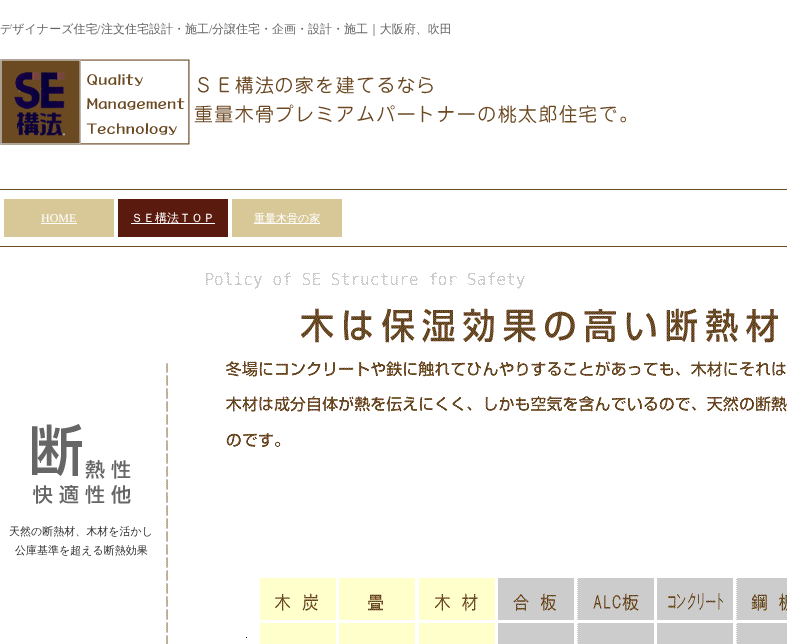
(async () => {
    const canvas = document.querySelector("canvas");
    canvas.width = 787;
    canvas.height = 644;
    const context = canvas.getContext("2d");
    context.miterLimit = 4;
    context.fontKerning = "normal";
    function write(s, x, y, font, color) {
        context.font = font;
        context.fillStyle = color;
        context.fillText(s, x, y);
    }
    function block(x, y, w, h, color) {
        context.fillStyle = color;
        context.fillRect(x, y, w, h);
    }
    async function photo(src, x, y, w, h) {
        const img = new Image();
        img.src = src;
        await img.decode();
        context.drawImage(img, x, y, w, h);
    }

    block(0, 0, 787, 644, "rgb(255, 255, 255)");
    write("デザイナーズ住宅", 0, 33, "500 12px WenQuanYi Zen Hei", "rgb(102, 102, 102)");
    write("/", 97, 33, "12px Liberation Serif", "rgb(102, 102, 102)");
    write("注文住宅設計・施工", 101, 33, "500 12px WenQuanYi Zen Hei", "rgb(102, 102, 102)");
    write("/", 209, 33, "12px Liberation Serif", "rgb(102, 102, 102)");
    write("分譲住宅・企画・設計・施工｜大阪府、吹田", 212, 33, "500 12px WenQuanYi Zen Hei", "rgb(102, 102, 102)");
    await photo("media/1.png", 0, 59, 190, 86);
    await photo("media/2.png", 194, 76, 432, 47);
    block(0, 189, 787, 1, "rgb(108, 73, 35)");
    block(0, 246, 787, 1, "rgb(108, 73, 35)");
    block(4, 199, 110, 38, "rgb(216, 200, 152)");
    write("HOME", 41, 222, "12px Liberation Serif", "rgb(255, 255, 255)");
    block(41, 223, 36, 1, "rgb(255, 255, 255)");
    block(118, 199, 110, 38, "rgb(90, 26, 14)");
    block(131, 223, 84, 1, "rgb(255, 255, 255)");
    write("ＳＥ構法ＴＯＰ", 131, 222, "500 12px WenQuanYi Zen Hei", "rgb(255, 255, 255)");
    block(232, 199, 110, 38, "rgb(216, 200, 152)");
    block(254, 223, 66, 1, "rgb(255, 255, 255)");
    write("重量木骨の家", 254, 222, "500 11px WenQuanYi Zen Hei", "rgb(255, 255, 255)");
    await photo("media/3.png", 32, 424, 99, 80);
    write("天然の断熱材、木材を活かし", 9, 535, "500 11px WenQuanYi Zen Hei", "rgb(51, 51, 51)");
    write("公庫基準を超える断熱効果", 15, 554, "500 11px WenQuanYi Zen Hei", "rgb(51, 51, 51)");
    await photo("media/4.png", 166, 363, 2, 281);
    await photo("media/5.png", 206, 272, 581, 372);
})();
